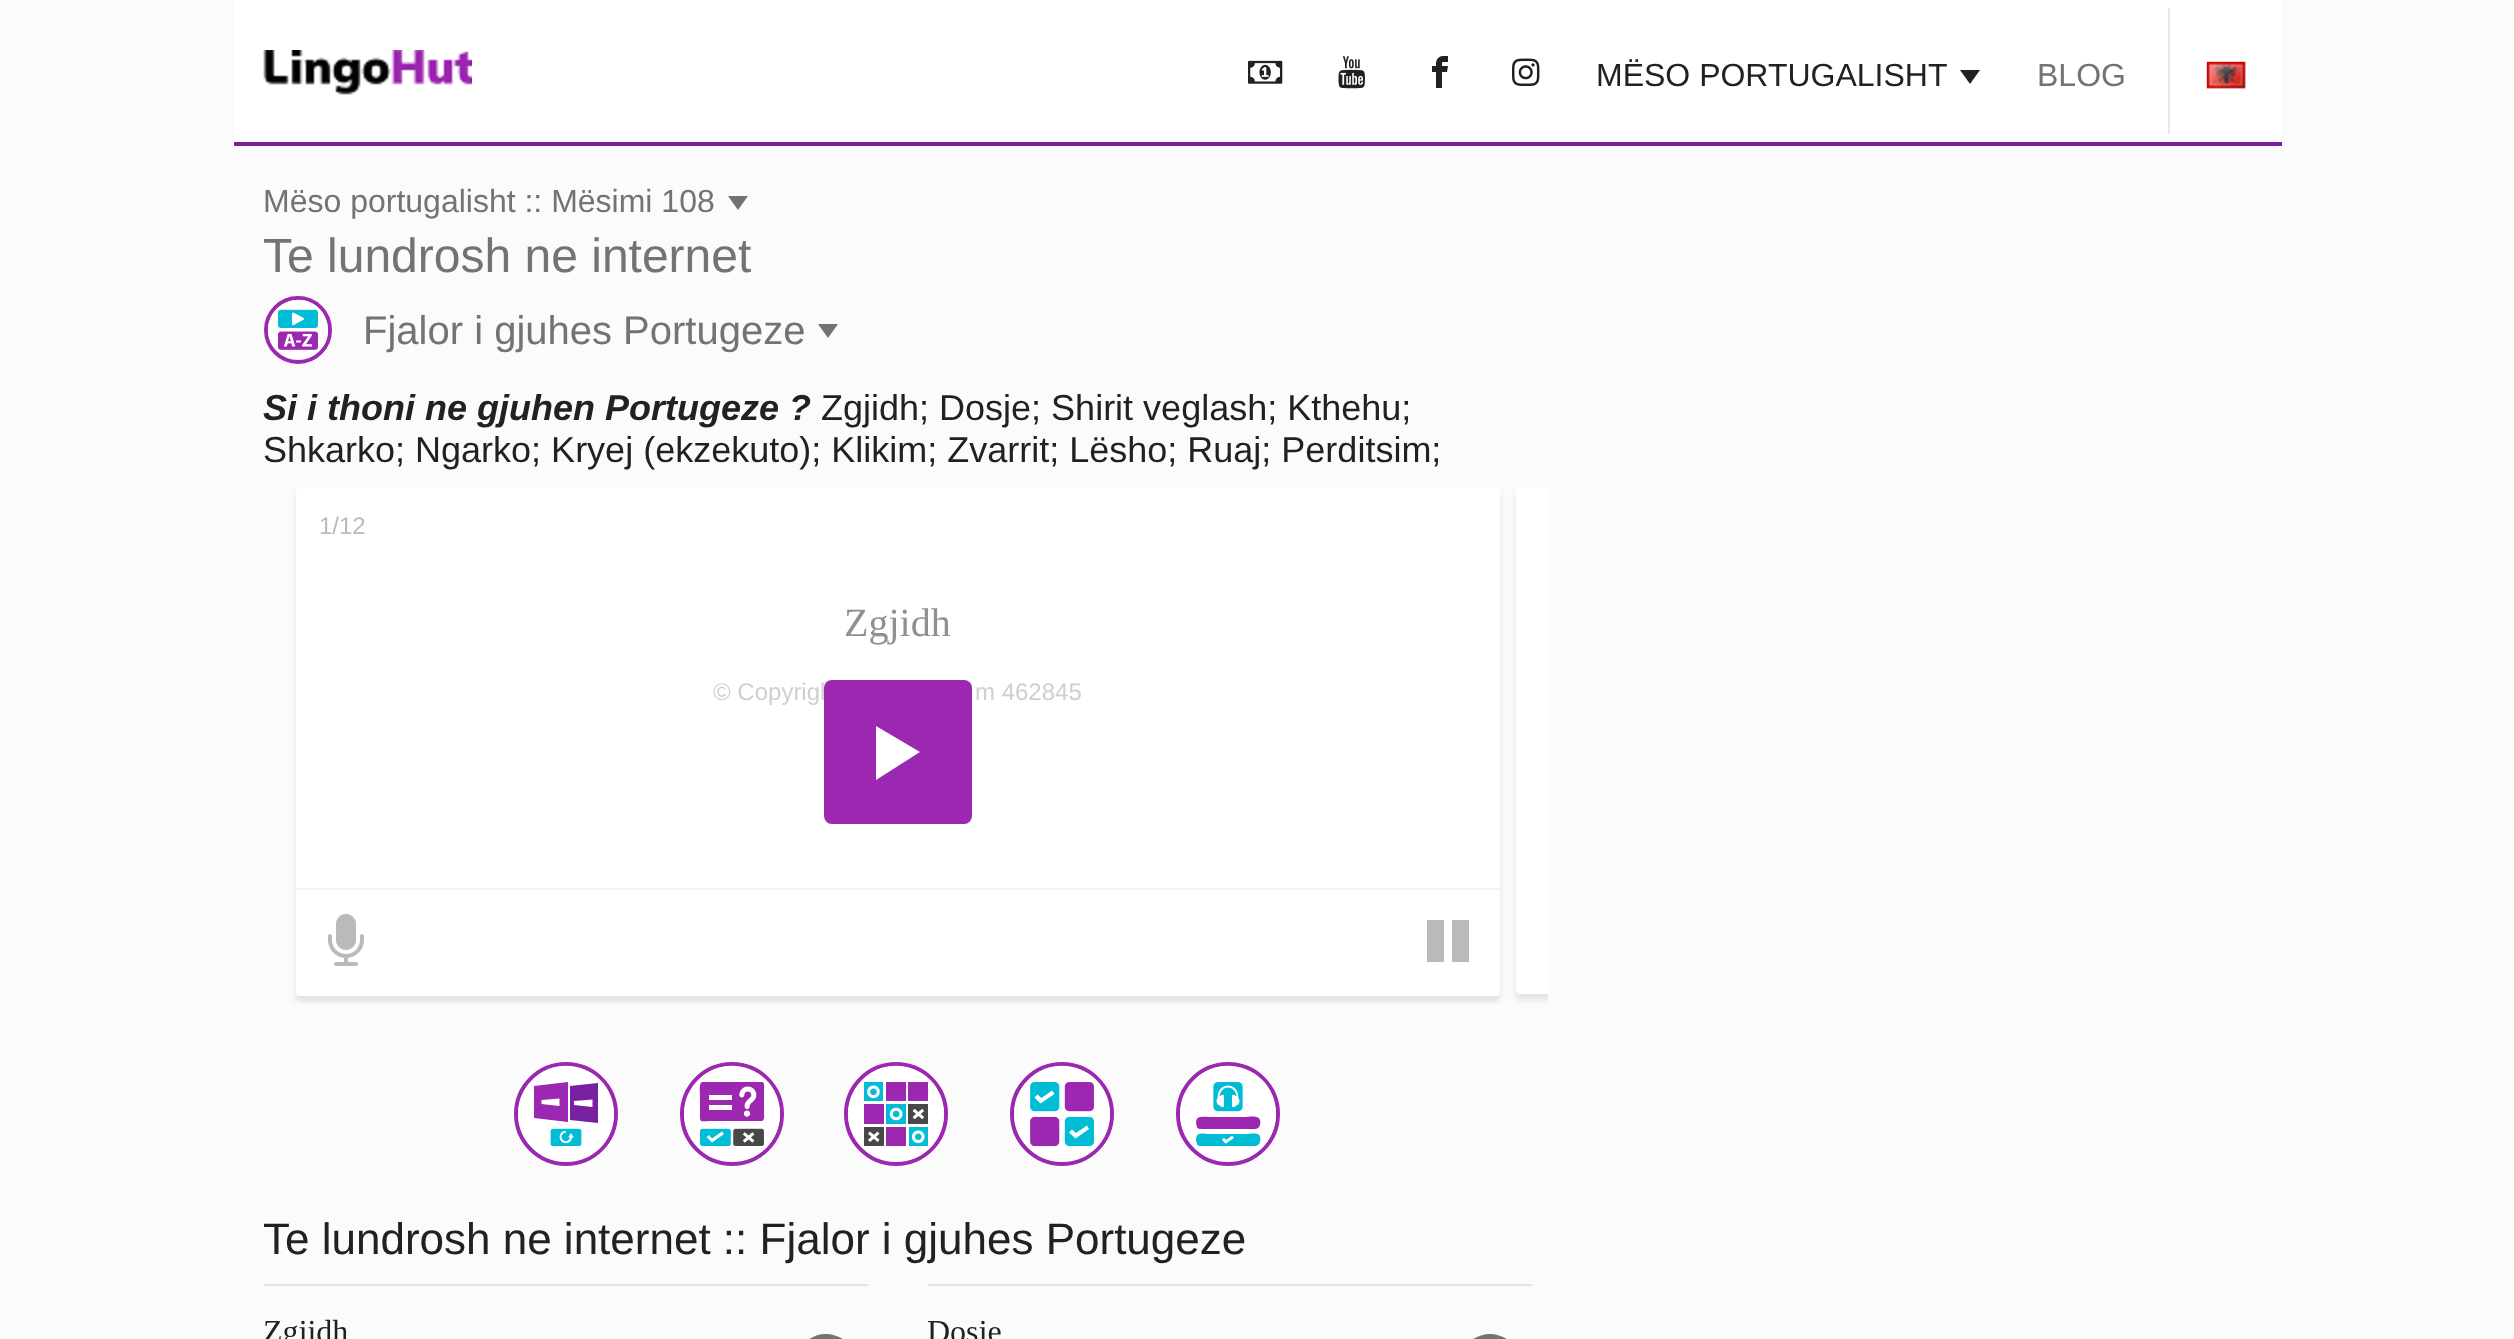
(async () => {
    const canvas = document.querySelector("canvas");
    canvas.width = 2514;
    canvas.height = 1339;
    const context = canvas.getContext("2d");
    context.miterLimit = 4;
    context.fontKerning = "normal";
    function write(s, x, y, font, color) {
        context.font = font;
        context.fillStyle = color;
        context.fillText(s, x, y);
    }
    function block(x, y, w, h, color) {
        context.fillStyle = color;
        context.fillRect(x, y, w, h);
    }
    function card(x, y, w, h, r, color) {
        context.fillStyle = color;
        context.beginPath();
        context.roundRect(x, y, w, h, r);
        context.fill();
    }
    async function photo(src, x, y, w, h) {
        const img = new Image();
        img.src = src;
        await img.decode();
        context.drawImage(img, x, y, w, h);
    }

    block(0, 0, 2514, 1339, "rgb(251, 251, 251)");
    block(234, 0, 2048, 142, "rgb(255, 255, 255)");
    block(234, 142, 2048, 4, "rgb(123, 31, 162)");
    await photo("media/1.png", 263, 50, 209, 45);
    await photo("media/2.png", 1248, 60, 35, 24);
    await photo("media/3.png", 1338, 56, 27, 33);
    await photo("media/4.png", 1432, 56, 16, 32);
    await photo("media/5.png", 1512, 58, 28, 28);
    write("MËSO PORTUGALISHT", 1596, 86, "32px Liberation Sans", "rgb(33, 33, 33)");
    context.beginPath();
    context.moveTo(1960, 70);
    context.lineTo(1980, 70);
    context.lineTo(1970, 84);
    context.closePath();
    context.fill();
    write("BLOG", 2037, 86, "32px Liberation Sans", "rgb(115, 115, 115)");
    block(2168, 8, 2, 126, "rgb(232, 232, 232)");
    await photo("media/6.png", 2206, 61, 40, 28);
    write("Mëso portugalisht :: Mësimi 108", 263, 212, "32px Liberation Sans", "rgb(115, 115, 115)");
    context.beginPath();
    context.moveTo(728, 196);
    context.lineTo(748, 196);
    context.lineTo(738, 210);
    context.closePath();
    context.fill();
    write("Te lundrosh ne internet", 263, 272, "48px Liberation Sans", "rgb(115, 115, 115)");
    context.beginPath();
    context.arc(298, 330, 32, 0, Math.PI * 2);
    context.strokeStyle = "rgb(156, 39, 176)";
    context.lineWidth = 4;
    context.stroke();
    context.fillStyle = "rgb(255, 255, 255)";
    context.beginPath();
    context.moveTo(328, 330);
    context.bezierCurveTo(328, 337, 326, 344, 321, 349);
    context.bezierCurveTo(303, 370, 267, 357, 268, 329);
    context.bezierCurveTo(269, 301, 306, 288, 323, 313);
    context.bezierCurveTo(326, 318, 328, 324, 328, 330);
    context.closePath();
    context.fill();
    await photo("media/7.png", 278, 309, 40, 19);
    await photo("media/8.png", 291, 312, 13, 14);
    await photo("media/9.png", 278, 331, 40, 19);
    await photo("media/10.png", 283, 333, 13, 14);
    context.beginPath();
    context.moveTo(301, 340.5);
    context.lineTo(301, 342.5);
    context.lineTo(296, 342.5);
    context.lineTo(296, 340.5);
    context.closePath();
    context.fill();
    await photo("media/11.png", 302, 333, 10, 14);
    write("Fjalor i gjuhes Portugeze", 363, 344, "40px Liberation Sans", "rgb(115, 115, 115)");
    context.beginPath();
    context.moveTo(818, 324);
    context.lineTo(838, 324);
    context.lineTo(828, 338);
    context.closePath();
    context.fill();
    write("Si i thoni ne gjuhen Portugeze ?", 263, 420, "italic bold 36px Liberation Sans", "rgb(33, 33, 33)");
    write("Zgjidh; Dosje; Shirit veglash; Kthehu;", 821, 420, "36px Liberation Sans", "rgb(33, 33, 33)");
    write("Shkarko; Ngarko; Kryej (ekzekuto); Klikim; Zvarrit; Lësho; Ruaj; Perditsim;", 263, 462, "36px Liberation Sans", "rgb(33, 33, 33)");
    context.save();
    context.beginPath();
    context.rect(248, 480, 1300, 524);
    context.clip();
    context.fillStyle = "rgba(128, 128, 128, 0.2)";
    context.filter = "blur(3px)";
    context.beginPath();
    context.roundRect(296, 494, 1204, 508, 4);
    context.fill();
    context.filter = "none";
    context.restore();
    card(296, 488, 1204, 508, 4, "rgb(255, 255, 255)");
    write("1/12", 319, 534, "24px Liberation Sans", "rgb(186, 186, 186)");
    write("Zgjidh", 844, 636, "40px Liberation Serif", "rgb(144, 144, 144)");
    write("© Copyrigh", 713, 700, "24px Liberation Sans", "rgb(207, 207, 207)");
    write("m 462845", 975, 700, "24px Liberation Sans", "rgb(207, 207, 207)");
    block(296, 888, 1204, 2, "rgb(244, 244, 244)");
    await photo("media/12.png", 328, 914, 36, 52);
    context.fillStyle = "rgb(186, 186, 186)";
    context.beginPath();
    context.moveTo(1427, 920);
    context.lineTo(1444, 920);
    context.lineTo(1444, 962);
    context.lineTo(1427, 962);
    context.closePath();
    context.moveTo(1452, 920);
    context.lineTo(1469, 920);
    context.lineTo(1469, 962);
    context.lineTo(1452, 962);
    context.closePath();
    context.fill();
    context.save();
    context.beginPath();
    context.rect(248, 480, 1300, 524);
    context.clip();
    context.fillStyle = "rgba(128, 128, 128, 0.2)";
    context.filter = "blur(3px)";
    context.beginPath();
    context.roundRect(1516, 494, 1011, 506, 4);
    context.fill();
    context.filter = "none";
    context.restore();
    context.fillStyle = "rgb(255, 255, 255)";
    context.beginPath();
    context.roundRect(1516, 488, 32, 506, [4, 0, 0, 4]);
    context.fill();
    card(824, 680, 148, 144, 8, "rgb(156, 39, 176)");
    context.fillStyle = "rgb(255, 255, 255)";
    context.beginPath();
    context.moveTo(876, 726);
    context.lineTo(920, 752);
    context.lineTo(876, 780);
    context.closePath();
    context.fill();
    context.beginPath();
    context.arc(566, 1114, 50, 0, Math.PI * 2);
    context.stroke();
    context.beginPath();
    context.moveTo(614, 1114);
    context.bezierCurveTo(614, 1125, 610, 1136, 603, 1145);
    context.bezierCurveTo(580, 1172, 535, 1165, 522, 1132);
    context.bezierCurveTo(519, 1126, 518, 1119, 518, 1113);
    context.bezierCurveTo(520, 1079, 553, 1056, 585, 1070);
    context.bezierCurveTo(593, 1073, 601, 1079, 606, 1087);
    context.bezierCurveTo(611, 1095, 614, 1104, 614, 1114);
    context.closePath();
    context.fill();
    context.fillStyle = "rgb(156, 39, 176)";
    context.beginPath();
    context.moveTo(568, 1122);
    context.lineTo(534, 1118);
    context.lineTo(534, 1086);
    context.lineTo(568, 1082);
    context.closePath();
    context.fill();
    context.fillStyle = "rgb(120, 31, 162)";
    context.beginPath();
    context.moveTo(598, 1083);
    context.lineTo(598, 1123);
    context.lineTo(570, 1120);
    context.lineTo(570, 1086);
    context.closePath();
    context.fill();
    context.fillStyle = "rgb(255, 255, 255)";
    context.beginPath();
    context.moveTo(541.5, 1100);
    context.lineTo(559.5, 1098.5);
    context.lineTo(559.5, 1106);
    context.lineTo(541.5, 1104);
    context.closePath();
    context.moveTo(574, 1101);
    context.lineTo(592.5, 1099.5);
    context.lineTo(592.5, 1107);
    context.lineTo(574, 1105);
    context.closePath();
    context.fill();
    await photo("media/13.png", 550, 1128, 32, 18);
    await photo("media/14.png", 559, 1130, 15, 14);
    context.beginPath();
    context.arc(732, 1114, 50, 0, Math.PI * 2);
    context.stroke();
    context.beginPath();
    context.moveTo(780, 1114);
    context.bezierCurveTo(780, 1125, 776, 1136, 769, 1145);
    context.bezierCurveTo(746, 1172, 701, 1165, 688, 1132);
    context.bezierCurveTo(685, 1126, 684, 1119, 684, 1113);
    context.bezierCurveTo(686, 1079, 719, 1056, 751, 1070);
    context.bezierCurveTo(759, 1073, 767, 1079, 772, 1087);
    context.bezierCurveTo(777, 1095, 780, 1104, 780, 1114);
    context.closePath();
    context.fill();
    context.fillStyle = "rgb(156, 39, 176)";
    context.beginPath();
    context.moveTo(762, 1121);
    context.lineTo(712, 1121);
    context.bezierCurveTo(700, 1121, 700, 1124, 700, 1113);
    context.lineTo(700, 1096);
    context.bezierCurveTo(700, 1094, 699, 1084, 701, 1083);
    context.lineTo(702, 1082);
    context.lineTo(762, 1082);
    context.bezierCurveTo(765, 1082, 764, 1088, 764, 1090);
    context.lineTo(764, 1113);
    context.bezierCurveTo(764, 1115, 765, 1120, 762, 1121);
    context.closePath();
    context.fill();
    block(709, 1095, 23, 5, "rgb(255, 255, 255)");
    await photo("media/15.png", 739, 1086, 18, 24);
    block(709, 1105, 23, 5, "rgb(255, 255, 255)");
    await photo("media/16.png", 743, 1110, 8, 7);
    await photo("media/17.png", 700, 1128, 31, 18);
    await photo("media/18.png", 733, 1128, 31, 18);
    context.beginPath();
    context.moveTo(712, 1142.5);
    context.lineTo(706.5, 1137);
    context.lineTo(709, 1135);
    context.lineTo(712, 1138.5);
    context.lineTo(722, 1131.5);
    context.lineTo(724, 1134);
    context.closePath();
    context.fill();
    await photo("media/19.png", 742, 1132, 13, 11);
    context.beginPath();
    context.arc(896, 1114, 50, 0, Math.PI * 2);
    context.stroke();
    context.beginPath();
    context.moveTo(944, 1114);
    context.bezierCurveTo(944, 1125, 940, 1136, 933, 1145);
    context.bezierCurveTo(910, 1172, 865, 1165, 852, 1132);
    context.bezierCurveTo(849, 1126, 848, 1119, 848, 1113);
    context.bezierCurveTo(850, 1079, 883, 1056, 915, 1070);
    context.bezierCurveTo(923, 1073, 931, 1079, 936, 1087);
    context.bezierCurveTo(941, 1095, 944, 1104, 944, 1114);
    context.closePath();
    context.fill();
    block(864, 1082, 19, 19, "rgb(0, 188, 212)");
    block(886, 1082, 20, 19, "rgb(156, 39, 176)");
    block(908, 1082, 20, 19, "rgb(156, 39, 176)");
    await photo("media/20.png", 867, 1085, 13, 14);
    block(864, 1104, 20, 20, "rgb(156, 39, 176)");
    block(886, 1104, 20, 20, "rgb(0, 188, 212)");
    block(908, 1104, 20, 20, "rgb(72, 72, 73)");
    await photo("media/21.png", 889, 1107, 14, 14);
    await photo("media/22.png", 912, 1108, 12, 12);
    block(864, 1127, 20, 19, "rgb(72, 72, 73)");
    block(886, 1127, 20, 19, "rgb(156, 39, 176)");
    block(909, 1127, 19, 19, "rgb(0, 188, 212)");
    await photo("media/23.png", 868, 1131, 12, 11);
    await photo("media/24.png", 911, 1130, 14, 14);
    context.beginPath();
    context.arc(1062, 1114, 50, 0, Math.PI * 2);
    context.stroke();
    context.fillStyle = "rgb(255, 255, 255)";
    context.beginPath();
    context.moveTo(1110, 1114);
    context.bezierCurveTo(1110, 1125, 1106, 1136, 1099, 1145);
    context.bezierCurveTo(1076, 1172, 1031, 1165, 1018, 1132);
    context.bezierCurveTo(1015, 1126, 1014, 1119, 1014, 1113);
    context.bezierCurveTo(1016, 1079, 1049, 1056, 1081, 1070);
    context.bezierCurveTo(1089, 1073, 1097, 1079, 1102, 1087);
    context.bezierCurveTo(1107, 1095, 1110, 1104, 1110, 1114);
    context.closePath();
    context.fill();
    await photo("media/25.png", 1030, 1082, 30, 30);
    await photo("media/26.png", 1064, 1082, 30, 30);
    context.beginPath();
    context.moveTo(1040.5, 1103.5);
    context.lineTo(1034.5, 1097.5);
    context.lineTo(1037.5, 1094.5);
    context.lineTo(1041.5, 1098);
    context.lineTo(1052, 1090.5);
    context.lineTo(1054.5, 1094);
    context.closePath();
    context.fill();
    await photo("media/27.png", 1030, 1116, 30, 31);
    await photo("media/28.png", 1064, 1116, 30, 31);
    context.beginPath();
    context.moveTo(1075.5, 1138.5);
    context.lineTo(1069, 1132.5);
    context.lineTo(1072, 1129.5);
    context.lineTo(1076, 1133);
    context.lineTo(1087, 1125.5);
    context.lineTo(1089, 1129);
    context.closePath();
    context.fill();
    context.beginPath();
    context.arc(1228, 1114, 50, 0, Math.PI * 2);
    context.stroke();
    context.beginPath();
    context.moveTo(1276, 1114);
    context.bezierCurveTo(1276, 1125, 1272, 1136, 1265, 1145);
    context.bezierCurveTo(1242, 1172, 1197, 1165, 1184, 1132);
    context.bezierCurveTo(1181, 1126, 1180, 1119, 1180, 1113);
    context.bezierCurveTo(1182, 1079, 1215, 1056, 1247, 1070);
    context.bezierCurveTo(1255, 1073, 1263, 1079, 1268, 1087);
    context.bezierCurveTo(1273, 1095, 1276, 1104, 1276, 1114);
    context.closePath();
    context.fill();
    await photo("media/29.png", 1213, 1082, 30, 30);
    block(1221, 1095, 3, 12, "rgb(255, 255, 255)");
    await photo("media/30.png", 1216, 1085, 24, 21);
    block(1232, 1095, 3, 12, "rgb(255, 255, 255)");
    context.fillStyle = "rgb(156, 39, 176)";
    context.beginPath();
    context.moveTo(1255, 1129);
    context.lineTo(1200, 1129);
    context.bezierCurveTo(1199, 1129, 1197, 1128, 1197, 1127);
    context.lineTo(1196, 1123);
    context.bezierCurveTo(1196, 1115, 1203, 1117, 1210, 1117);
    context.lineTo(1246, 1117);
    context.bezierCurveTo(1249, 1117, 1258, 1115, 1260, 1120);
    context.bezierCurveTo(1261, 1123, 1260, 1129, 1255, 1129);
    context.closePath();
    context.fill();
    context.fillStyle = "rgb(0, 188, 212)";
    context.beginPath();
    context.moveTo(1255, 1146);
    context.lineTo(1200, 1146);
    context.bezierCurveTo(1199, 1146, 1197, 1145, 1197, 1144);
    context.lineTo(1196, 1140);
    context.bezierCurveTo(1196, 1131, 1203, 1134, 1210, 1134);
    context.lineTo(1246, 1134);
    context.bezierCurveTo(1249, 1134, 1258, 1132, 1260, 1136);
    context.bezierCurveTo(1261, 1140, 1260, 1146, 1255, 1146);
    context.closePath();
    context.fill();
    await photo("media/31.png", 1222, 1135, 12, 9);
    write("Te lundrosh ne internet :: Fjalor i gjuhes Portugeze", 263, 1254, "44px Liberation Sans", "rgb(33, 33, 33)");
    block(264, 1284, 604, 2, "rgb(228, 228, 228)");
    write("Zgjidh", 263, 1342, "32px Liberation Serif", "rgb(33, 33, 33)");
    context.fillStyle = "rgb(115, 115, 115)";
    context.beginPath();
    context.moveTo(826, 1334);
    context.bezierCurveTo(797, 1334, 785, 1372, 809, 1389);
    context.bezierCurveTo(814, 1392, 820, 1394, 826, 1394);
    context.bezierCurveTo(855, 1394, 867, 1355, 843, 1339);
    context.bezierCurveTo(838, 1336, 832, 1334, 826, 1334);
    context.closePath();
    context.moveTo(826, 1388);
    context.bezierCurveTo(794, 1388, 794, 1339, 826, 1339);
    context.bezierCurveTo(858, 1339, 858, 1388, 826, 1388);
    context.closePath();
    context.moveTo(818, 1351);
    context.lineTo(841, 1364);
    context.lineTo(818, 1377);
    context.closePath();
    context.fill();
    block(928, 1284, 604, 2, "rgb(228, 228, 228)");
    write("Dosje", 927, 1342, "32px Liberation Serif", "rgb(33, 33, 33)");
    context.fillStyle = "rgb(115, 115, 115)";
    context.beginPath();
    context.moveTo(1490, 1334);
    context.bezierCurveTo(1484, 1334, 1478, 1336, 1473, 1339);
    context.bezierCurveTo(1449, 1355, 1461, 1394, 1490, 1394);
    context.bezierCurveTo(1519, 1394, 1531, 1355, 1507, 1339);
    context.bezierCurveTo(1502, 1336, 1496, 1334, 1490, 1334);
    context.closePath();
    context.moveTo(1490, 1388);
    context.bezierCurveTo(1458, 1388, 1458, 1339, 1490, 1339);
    context.bezierCurveTo(1522, 1339, 1522, 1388, 1490, 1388);
    context.closePath();
    context.moveTo(1482, 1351);
    context.lineTo(1505, 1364);
    context.lineTo(1482, 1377);
    context.closePath();
    context.fill();
})();
